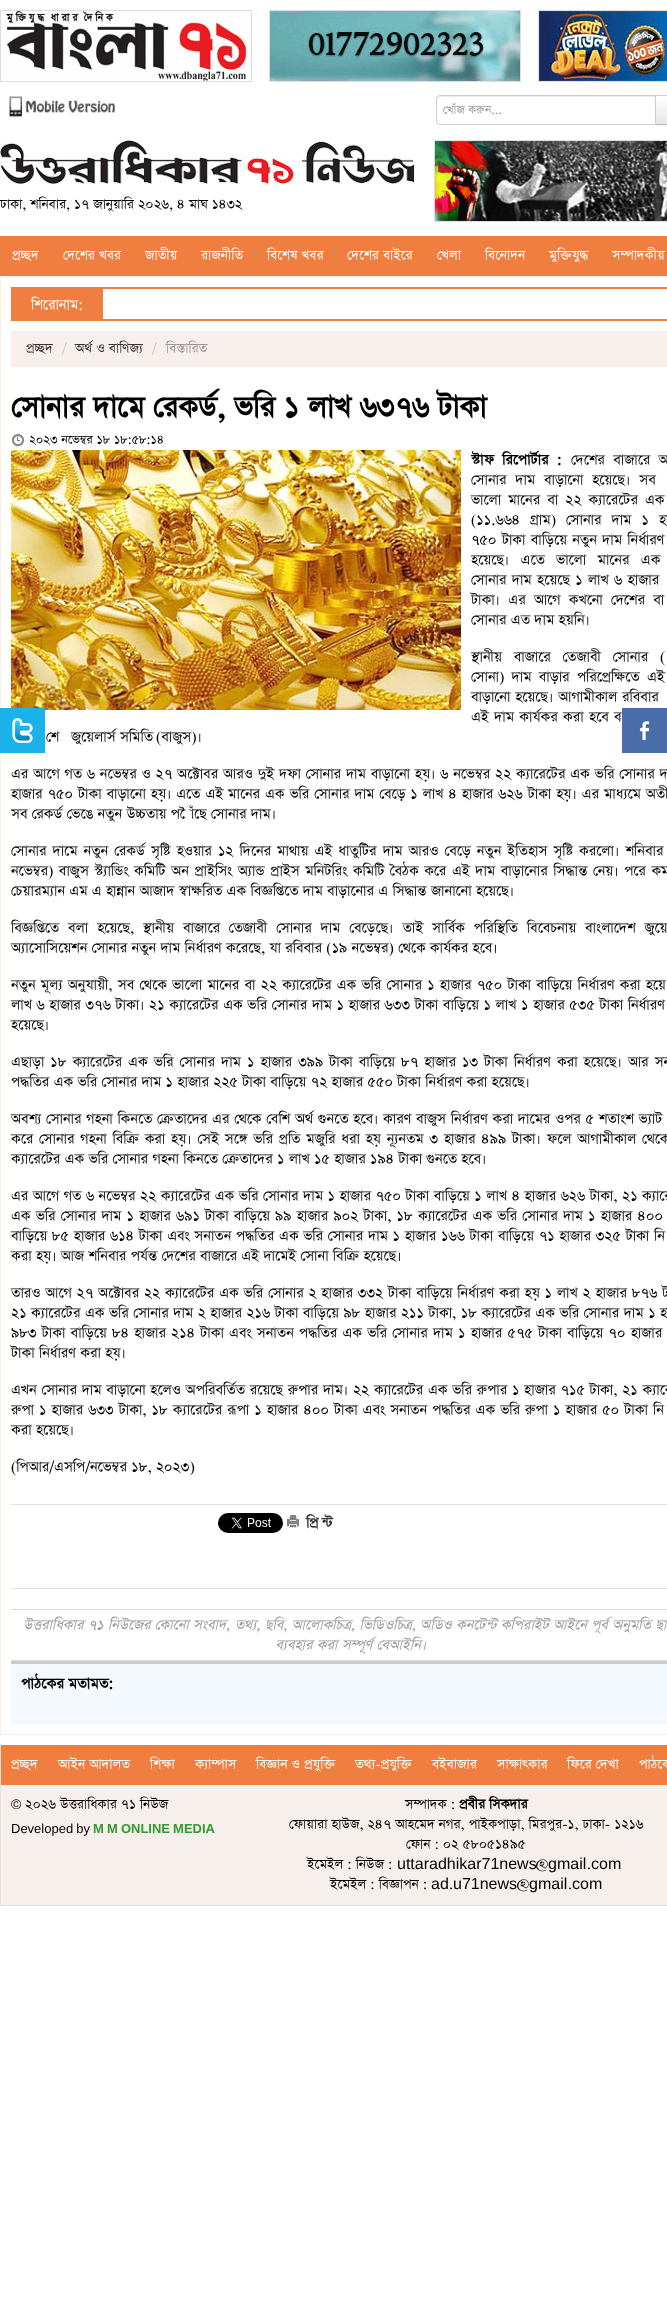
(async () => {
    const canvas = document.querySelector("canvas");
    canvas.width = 667;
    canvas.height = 2300;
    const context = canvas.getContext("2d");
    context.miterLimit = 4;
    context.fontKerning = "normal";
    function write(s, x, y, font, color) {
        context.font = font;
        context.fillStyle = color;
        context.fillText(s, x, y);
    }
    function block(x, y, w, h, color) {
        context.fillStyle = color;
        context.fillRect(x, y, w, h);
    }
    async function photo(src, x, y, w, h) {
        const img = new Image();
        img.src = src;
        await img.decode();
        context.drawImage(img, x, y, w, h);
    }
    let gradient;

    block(0, 0, 667, 2300, "rgb(255, 255, 255)");
    context.strokeStyle = "rgb(221, 221, 221)";
    context.strokeRect(0.5, 10.5, 251, 71);
    await photo("media/1.png", 1, 11, 250, 70);
    context.strokeRect(269.5, 10.5, 251, 71);
    await photo("media/2.png", 270, 11, 250, 70);
    context.strokeRect(538.5, 10.5, 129, 71);
    await photo("media/3.png", 539, 11, 128, 70);
    await photo("media/4.png", 9, 96, 106, 21);
    context.fillStyle = "rgba(0, 0, 0, 0.05)";
    context.filter = "blur(1px)";
    context.beginPath();
    context.roundRect(655, 96, 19, 30, 4);
    context.fill();
    context.filter = "none";
    context.fillStyle = "rgb(208, 208, 208)";
    context.beginPath();
    context.moveTo(655, 95);
    context.lineTo(656, 96);
    context.lineTo(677, 96);
    context.bezierCurveTo(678, 96, 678.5, 96.5, 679, 97);
    context.lineTo(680, 96);
    context.bezierCurveTo(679, 95.5, 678, 95, 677, 95);
    context.closePath();
    context.fill();
    context.fillStyle = "rgb(184, 184, 184)";
    context.beginPath();
    context.moveTo(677, 125);
    context.bezierCurveTo(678, 125, 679, 124.5, 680, 124);
    context.lineTo(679, 123);
    context.bezierCurveTo(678.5, 123.5, 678, 124, 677, 124);
    context.lineTo(656, 124);
    context.lineTo(655, 125);
    context.closePath();
    context.fill();
    context.fillStyle = "rgb(255, 255, 255)";
    context.beginPath();
    context.roundRect(436, 95, 220, 30, [4, 0, 0, 4]);
    context.fill();
    context.fillStyle = "rgb(236, 236, 236)";
    context.beginPath();
    context.moveTo(440, 97);
    context.lineTo(655, 97);
    context.lineTo(655, 96);
    context.lineTo(440, 96);
    context.bezierCurveTo(438, 96, 437, 97, 437, 99);
    context.lineTo(437, 100);
    context.bezierCurveTo(437, 98, 438, 97, 440, 97);
    context.closePath();
    context.fill();
    context.beginPath();
    context.roundRect(436.5, 95.5, 219, 29, [3.5, 0, 0, 3.5]);
    context.strokeStyle = "rgb(204, 204, 204)";
    context.stroke();
    context.save();
    context.beginPath();
    context.rect(443, 102, 206, 16);
    context.clip();
    write("খোঁজ করুন...", 443, 114, "14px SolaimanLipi", "rgb(153, 153, 153)");
    context.restore();
    gradient = context.createLinearGradient(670, 96, 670, 124);
    gradient.addColorStop(0, "rgb(255, 255, 255)");
    gradient.addColorStop(1, "rgb(230, 230, 230)");
    context.fillStyle = gradient;
    context.fillRect(656, 96, 11, 28);
    await photo("media/5.png", 0, 140, 415, 45);
    write("ঢাকা, শনিবার, ১৭ জানুয়ারি ২০২৬, ৪ মাঘ ১৪৩২", 0, 209, "16px SolaimanLipi", "rgb(0, 0, 0)");
    context.strokeStyle = "rgb(221, 221, 221)";
    context.strokeRect(434.5, 140.5, 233, 81);
    await photo("media/6.png", 435, 141, 232, 80);
    block(0, 236, 667, 40, "rgb(240, 126, 64)");
    write("প্রচ্ছদ", 12, 260, "16px SolaimanLipi", "rgb(255, 255, 255)");
    write("দেশের খবর", 63, 260, "16px SolaimanLipi", "rgb(255, 255, 255)");
    write("জাতীয়", 145, 260, "16px SolaimanLipi", "rgb(255, 255, 255)");
    write("রাজনীতি", 201, 260, "16px SolaimanLipi", "rgb(255, 255, 255)");
    write("বিশেষ খবর", 267, 260, "16px SolaimanLipi", "rgb(255, 255, 255)");
    write("দেশের বাইরে", 347, 260, "16px SolaimanLipi", "rgb(255, 255, 255)");
    write("খেলা", 437, 260, "16px SolaimanLipi", "rgb(255, 255, 255)");
    write("বিনোদন", 485, 260, "16px SolaimanLipi", "rgb(255, 255, 255)");
    write("মুক্তিযুদ্ধ", 549, 260, "16px SolaimanLipi", "rgb(255, 255, 255)");
    write("সম্পাদকীয়", 612, 260, "16px SolaimanLipi", "rgb(255, 255, 255)");
    context.strokeStyle = "rgb(255, 238, 230)";
    context.strokeRect(0.5, 276.5, 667, 1458);
    block(11, 287, 656, 2, "rgb(240, 126, 64)");
    block(11, 319, 656, 2, "rgb(240, 126, 64)");
    block(11, 289, 92, 30, "rgb(240, 126, 64)");
    write("শিরোনাম:", 31, 310, "17px SolaimanLipi", "rgb(255, 255, 255)");
    block(11, 331, 656, 36, "rgb(247, 239, 235)");
    write("প্রচ্ছদ", 26, 353, "16px SolaimanLipi", "rgb(53, 53, 53)");
    write("/", 62, 353, "16px SolaimanLipi", "rgb(204, 204, 204)");
    write("অর্থ ও বাণিজ্য", 75, 353, "16px SolaimanLipi", "rgb(53, 53, 53)");
    write("/", 152, 353, "16px SolaimanLipi", "rgb(204, 204, 204)");
    write("বিস্তারিত", 166, 353, "16px SolaimanLipi", "rgb(153, 153, 153)");
    write("সোনার দামে রেকর্ড, ভরি ১ লাখ ৬৩৭৬ টাকা", 11, 418, "bold 35px SolaimanLipi", "rgb(0, 0, 0)");
    await photo("media/7.png", 12, 434, 12, 13);
    write("২০২৩ নভেম্বর ১৮ ১৮:৫৮:১৪", 29, 444, "14.5px SolaimanLipi", "rgb(0, 0, 0)");
    await photo("media/8.png", 11, 450, 450, 260);
    context.wordSpacing = "4px";
    write("স্টাফ রিপোর্টার :", 471, 465, "bold 17px SolaimanLipi", "rgb(0, 0, 0)");
    write("দেশের বাজারে আ", 571, 465, "17px SolaimanLipi", "rgb(0, 0, 0)");
    context.wordSpacing = "4.5px";
    write("সোনার দাম বাড়ানো হয়েছে। সব", 471, 485, "17px SolaimanLipi", "rgb(0, 0, 0)");
    context.wordSpacing = "2.75px";
    write("ভালো মানের বা ২২ ক্যারেটের এক", 471, 505, "17px SolaimanLipi", "rgb(0, 0, 0)");
    context.wordSpacing = "5.75px";
    write("(১১.৬৬৪ গ্রাম) সোনার দাম ১ হা", 471, 525, "17px SolaimanLipi", "rgb(0, 0, 0)");
    context.wordSpacing = "1px";
    write("৭৫০ টাকা বাড়িয়ে নতুন দাম নির্ধারণ", 471, 545, "17px SolaimanLipi", "rgb(0, 0, 0)");
    context.wordSpacing = "7px";
    write("হয়েছে। এতে ভালো মানের এক", 471, 565, "17px SolaimanLipi", "rgb(0, 0, 0)");
    context.wordSpacing = "1px";
    write("সোনার দাম হয়েছে ১ লাখ ৬ হাজার", 471, 585, "17px SolaimanLipi", "rgb(0, 0, 0)");
    context.wordSpacing = "4px";
    write("টাকা। এর আগে কখনো দেশের বা", 471, 605, "17px SolaimanLipi", "rgb(0, 0, 0)");
    context.wordSpacing = "0px";
    write("সোনার এত দাম হয়নি।", 471, 625, "17px SolaimanLipi", "rgb(0, 0, 0)");
    context.wordSpacing = "7.5px";
    write("স্থানীয় বাজারে তেজাবী সোনার (", 471, 662, "17px SolaimanLipi", "rgb(0, 0, 0)");
    context.wordSpacing = "3px";
    write("সোনা) দাম বাড়ার পরিপ্রেক্ষিতে এই", 471, 682, "17px SolaimanLipi", "rgb(0, 0, 0)");
    context.wordSpacing = "0.5px";
    write("বাড়ানো হয়েছে। আগামীকাল রবিবার", 471, 702, "17px SolaimanLipi", "rgb(0, 0, 0)");
    context.wordSpacing = "1px";
    write("এই দাম কার্যকর করা হবে ব", 471, 722, "17px SolaimanLipi", "rgb(0, 0, 0)");
    context.wordSpacing = "0px";
    write("েশ", 46, 742, "17px SolaimanLipi", "rgb(0, 0, 0)");
    write("জুয়েলার্স সমিতি", 71, 742, "17px SolaimanLipi", "rgb(0, 0, 0)");
    write("(বাজুস)।", 156, 742, "17px SolaimanLipi", "rgb(0, 0, 0)");
    context.wordSpacing = "0.5px";
    write("এর আগে গত ৬ নভেম্বর ও ২৭ অক্টোবর আরও দুই দফা সোনার দাম বাড়ানো হয়। ৬ নভেম্বর ২২ ক্যারেটের এক ভরি সোনার দা", 11, 779, "17px SolaimanLipi", "rgb(0, 0, 0)");
    context.wordSpacing = "0.6px";
    write("হাজার ৭৫০ টাকা বাড়ানো হয়। এতে এই মানের এক ভরি সোনার দাম বেড়ে ১ লাখ ৪ হাজার ৬২৬ টাকা হয়। এর মাধ্যমে অতী", 11, 799, "17px SolaimanLipi", "rgb(0, 0, 0)");
    context.wordSpacing = "0px";
    write("সব রেকর্ড ভেঙে নতুন উচ্চতায় পৌঁছে সোনার দাম।", 11, 819, "17px SolaimanLipi", "rgb(0, 0, 0)");
    context.wordSpacing = "1.75px";
    write("সোনার দামে নতুন রেকর্ড সৃষ্টি হওয়ার ১২ দিনের মাথায় এই ধাতুটির দাম আরও বেড়ে নতুন ইতিহাস সৃষ্টি করলো। শনিবার", 11, 856, "17px SolaimanLipi", "rgb(0, 0, 0)");
    context.wordSpacing = "1.25px";
    write("নভেম্বর) বাজুস স্ট্যান্ডিং কমিটি অন প্রাইসিং অ্যান্ড প্রাইস মনিটরিং কমিটি বৈঠক করে এই দাম বাড়ানোর সিদ্ধান্ত নেয়। পরে কম", 11, 876, "17px SolaimanLipi", "rgb(0, 0, 0)");
    context.wordSpacing = "0px";
    write("চেয়ারম্যান এম এ হান্নান আজাদ স্বাক্ষরিত এক বিজ্ঞপ্তিতে দাম বাড়ানোর এ সিদ্ধান্ত জানানো হয়েছে।", 11, 896, "17px SolaimanLipi", "rgb(0, 0, 0)");
    context.wordSpacing = "4.6px";
    write("বিজ্ঞপ্তিতে বলা হয়েছে, স্থানীয় বাজারে তেজাবী সোনার দাম বেড়েছে। তাই সার্বিক পরিস্থিতি বিবেচনায় বাংলাদেশ জুয়ে", 11, 933, "17px SolaimanLipi", "rgb(0, 0, 0)");
    context.wordSpacing = "0px";
    write("অ্যাসোসিয়েশন সোনার নতুন দাম নির্ধারণ করেছে, যা রবিবার (১৯ নভেম্বর) থেকে কার্যকর হবে।", 11, 953, "17px SolaimanLipi", "rgb(0, 0, 0)");
    context.wordSpacing = "0.9px";
    write("নতুন মূল্য অনুযায়ী, সব থেকে ভালো মানের বা ২২ ক্যারেটের এক ভরি সোনার ১ হাজার ৭৫০ টাকা বাড়িয়ে নির্ধারণ করা হয়ে", 11, 990, "17px SolaimanLipi", "rgb(0, 0, 0)");
    context.wordSpacing = "0.3px";
    write("লাখ ৬ হাজার ৩৭৬ টাকা। ২১ ক্যারেটের এক ভরি সোনার দাম ১ হাজার ৬৩৩ টাকা বাড়িয়ে ১ লাখ ১ হাজার ৫৩৫ টাকা নির্ধারণ", 11, 1010, "17px SolaimanLipi", "rgb(0, 0, 0)");
    context.wordSpacing = "0px";
    write("হয়েছে।", 11, 1030, "17px SolaimanLipi", "rgb(0, 0, 0)");
    context.wordSpacing = "1.75px";
    write("এছাড়া ১৮ ক্যারেটের এক ভরি সোনার দাম ১ হাজার ৩৯৯ টাকা বাড়িয়ে ৮৭ হাজার ১৩ টাকা নির্ধারণ করা হয়েছে। আর সন", 11, 1067, "17px SolaimanLipi", "rgb(0, 0, 0)");
    context.wordSpacing = "0px";
    write("পদ্ধতির এক ভরি সোনার দাম ১ হাজার ২২৫ টাকা বাড়িয়ে ৭২ হাজার ৫৫০ টাকা নির্ধারণ করা হয়েছে।", 11, 1087, "17px SolaimanLipi", "rgb(0, 0, 0)");
    context.wordSpacing = "0.4px";
    write("অবশ্য সোনার গহনা কিনতে ক্রেতাদের এর থেকে বেশি অর্থ গুনতে হবে। কারণ বাজুস নির্ধারণ করা দামের ওপর ৫ শতাংশ ভ্যাট", 11, 1124, "17px SolaimanLipi", "rgb(0, 0, 0)");
    context.wordSpacing = "1.5px";
    write("করে সোনার গহনা বিক্রি করা হয়। সেই সঙ্গে ভরি প্রতি মজুরি ধরা হয় ন্যূনতম ৩ হাজার ৪৯৯ টাকা। ফলে আগামীকাল থেকে", 11, 1144, "17px SolaimanLipi", "rgb(0, 0, 0)");
    context.wordSpacing = "0px";
    write("ক্যারেটের এক ভরি সোনার গহনা কিনতে ক্রেতাদের ১ লাখ ১৫ হাজার ১৯৪ টাকা গুনতে হবে।", 11, 1164, "17px SolaimanLipi", "rgb(0, 0, 0)");
    context.wordSpacing = "0.2px";
    write("এর আগে গত ৬ নভেম্বর ২২ ক্যারেটের এক ভরি সোনার দাম ১ হাজার ৭৫০ টাকা বাড়িয়ে ১ লাখ ৪ হাজার ৬২৬ টাকা, ২১ ক্যারে", 11, 1201, "17px SolaimanLipi", "rgb(0, 0, 0)");
    context.wordSpacing = "0.9px";
    write("এক ভরি সোনার দাম ১ হাজার ৬৯১ টাকা বাড়িয়ে ৯৯ হাজার ৯০২ টাকা, ১৮ ক্যারেটের এক ভরি সোনার দাম ১ হাজার ৪০০", 11, 1221, "17px SolaimanLipi", "rgb(0, 0, 0)");
    context.wordSpacing = "0.4px";
    write("বাড়িয়ে ৮৫ হাজার ৬১৪ টাকা এবং সনাতন পদ্ধতির এক ভরি সোনার দাম ১ হাজার ১৬৬ টাকা বাড়িয়ে ৭১ হাজার ৩২৫ টাকা নি", 11, 1241, "17px SolaimanLipi", "rgb(0, 0, 0)");
    context.wordSpacing = "0px";
    write("করা হয়। আজ শনিবার পর্যন্ত দেশের বাজারে এই দামেই সোনা বিক্রি হয়েছে।", 11, 1261, "17px SolaimanLipi", "rgb(0, 0, 0)");
    context.wordSpacing = "0.5px";
    write("তারও আগে ২৭ অক্টোবর ২২ ক্যারেটের এক ভরি সোনার ২ হাজার ৩৩২ টাকা বাড়িয়ে নির্ধারণ করা হয় ১ লাখ ২ হাজার ৮৭৬ ট", 11, 1298, "17px SolaimanLipi", "rgb(0, 0, 0)");
    context.wordSpacing = "0.2px";
    write("২১ ক্যারেটের এক ভরি সোনার দাম ২ হাজার ২১৬ টাকা বাড়িয়ে ৯৮ হাজার ২১১ টাকা, ১৮ ক্যারেটের এক ভরি সোনার দাম ১ হা", 11, 1318, "17px SolaimanLipi", "rgb(0, 0, 0)");
    context.wordSpacing = "0.9px";
    write("৯৮৩ টাকা বাড়িয়ে ৮৪ হাজার ২১৪ টাকা এবং সনাতন পদ্ধতির এক ভরি সোনার দাম ১ হাজার ৫৭৫ টাকা বাড়িয়ে ৭০ হাজার", 11, 1338, "17px SolaimanLipi", "rgb(0, 0, 0)");
    context.wordSpacing = "0px";
    write("টাকা নির্ধারণ করা হয়।", 11, 1358, "17px SolaimanLipi", "rgb(0, 0, 0)");
    context.wordSpacing = "0.4px";
    write("এখন সোনার দাম বাড়ানো হলেও অপরিবর্তিত রয়েছে রুপার দাম। ২২ ক্যারেটের এক ভরি রুপার ১ হাজার ৭১৫ টাকা, ২১ ক্যারে", 11, 1395, "17px SolaimanLipi", "rgb(0, 0, 0)");
    context.wordSpacing = "0.75px";
    write("রুপা ১ হাজার ৬৩৩ টাকা, ১৮ ক্যারেটের রূপা ১ হাজার ৪০০ টাকা এবং সনাতন পদ্ধতির এক ভরি রুপা ১ হাজার ৫০ টাকা নি", 11, 1415, "17px SolaimanLipi", "rgb(0, 0, 0)");
    context.wordSpacing = "0px";
    write("করা হয়েছে।", 11, 1435, "17px SolaimanLipi", "rgb(0, 0, 0)");
    write("(পিআর/এসপি/নভেম্বর ১৮, ২০২৩)", 11, 1472, "17px SolaimanLipi", "rgb(0, 0, 0)");
    block(11, 1504, 656, 1, "rgb(226, 226, 226)");
    block(11, 1588, 656, 1, "rgb(226, 226, 226)");
    await photo("media/9.png", 218, 1513, 65, 20);
    await photo("media/10.png", 287, 1515, 12, 13);
    context.letterSpacing = "3px";
    write("প্রিন্ট", 306, 1528, "bold 17px SolaimanLipi", "rgb(53, 53, 53)");
    block(11, 1609, 656, 1, "rgb(221, 221, 221)");
    block(11, 1660, 656, 1, "rgb(221, 221, 221)");
    context.letterSpacing = "0px";
    write("উত্তরাধিকার ৭১ নিউজের কোনো সংবাদ, তথ্য, ছবি, আলোকচিত্র, ভিডিওচিত্র, অডিও কনটেন্ট কপিরাইট আইনে পূর্ব অনুমতি ছা", 23, 1630, "italic 17px SolaimanLipi", "rgb(153, 153, 153)");
    write("ব্যবহার করা সম্পূর্ণ বেআইনি।", 275, 1650, "italic 17px SolaimanLipi", "rgb(153, 153, 153)");
    block(11, 1664, 656, 60, "rgb(243, 249, 255)");
    block(11, 1661, 656, 3, "rgb(204, 204, 204)");
    write("পাঠকের মতামত:", 21, 1689, "bold 17.5px SolaimanLipi", "rgb(0, 0, 0)");
    block(1, 1785, 666, 120, "rgb(247, 239, 235)");
    block(0, 1905, 667, 1, "rgb(226, 226, 226)");
    block(0, 1745, 1, 161, "rgb(226, 226, 226)");
    block(1, 1745, 666, 40, "rgb(240, 126, 64)");
    write("প্রচ্ছদ", 11, 1769, "16px SolaimanLipi", "rgb(255, 255, 255)");
    write("আইন আদালত", 58, 1769, "16px SolaimanLipi", "rgb(255, 255, 255)");
    write("শিক্ষা", 150, 1769, "16px SolaimanLipi", "rgb(255, 255, 255)");
    write("ক্যাম্পাস", 195, 1769, "16px SolaimanLipi", "rgb(255, 255, 255)");
    write("বিজ্ঞান ও প্রযুক্তি", 256, 1769, "16px SolaimanLipi", "rgb(255, 255, 255)");
    write("তথ্য-প্রযুক্তি", 355, 1769, "16px SolaimanLipi", "rgb(255, 255, 255)");
    write("বইবাজার", 432, 1769, "16px SolaimanLipi", "rgb(255, 255, 255)");
    write("সাক্ষাৎকার", 497, 1769, "16px SolaimanLipi", "rgb(255, 255, 255)");
    write("ফিরে দেখা", 567, 1769, "16px SolaimanLipi", "rgb(255, 255, 255)");
    write("পাঠকে", 639, 1769, "16px SolaimanLipi", "rgb(255, 255, 255)");
    write("©", 11, 1809, "14px Liberation Sans", "rgb(0, 0, 0)");
    write("২০২৬ উত্তরাধিকার ৭১ নিউজ", 25, 1809, "16px SolaimanLipi", "rgb(0, 0, 0)");
    context.wordSpacing = "-0.5px";
    write("Developed by", 11, 1833, "13px Liberation Sans", "rgb(0, 0, 0)");
    write("M M ONLINE MEDIA", 93, 1833, "bold 13px Liberation Sans", "rgb(51, 153, 51)");
    context.wordSpacing = "0px";
    write("সম্পাদক :", 405, 1809, "16px SolaimanLipi", "rgb(0, 0, 0)");
    write("প্রবীর সিকদার", 459, 1809, "bold 16px SolaimanLipi", "rgb(0, 0, 0)");
    write("ফোয়ারা হাউজ, ২৪৭ আহমেদ নগর, পাইকপাড়া, মিরপুর-১, ঢাকা- ১২১৬", 289, 1829, "16px SolaimanLipi", "rgb(0, 0, 0)");
    write("ফোন : ০২ ৫৮০৫১৪৯৫", 406, 1849, "16px SolaimanLipi", "rgb(0, 0, 0)");
    write("ইমেইল : নিউজ :", 307, 1869, "16px SolaimanLipi", "rgb(0, 0, 0)");
    write("uttaradhikar71news", 397, 1869, "16px Liberation Sans", "rgb(0, 0, 0)");
    write("@", 536, 1869, "16px SolaimanLipi", "rgb(0, 0, 0)");
    write("gmail", 548, 1869, "16px Liberation Sans", "rgb(0, 0, 0)");
    write(".", 587, 1869, "16px SolaimanLipi", "rgb(0, 0, 0)");
    write("com", 591, 1869, "16px Liberation Sans", "rgb(0, 0, 0)");
    write("ইমেইল : বিজ্ঞাপন :", 330, 1889, "16px SolaimanLipi", "rgb(0, 0, 0)");
    write("ad", 431, 1889, "16px Liberation Sans", "rgb(0, 0, 0)");
    write(".", 449, 1889, "16px SolaimanLipi", "rgb(0, 0, 0)");
    write("u71news", 453, 1889, "16px Liberation Sans", "rgb(0, 0, 0)");
    write("@", 517, 1889, "16px SolaimanLipi", "rgb(0, 0, 0)");
    write("gmail", 529, 1889, "16px Liberation Sans", "rgb(0, 0, 0)");
    write(".", 568, 1889, "16px SolaimanLipi", "rgb(0, 0, 0)");
    write("com", 572, 1889, "16px Liberation Sans", "rgb(0, 0, 0)");
    block(0, 708, 45, 45, "rgb(26, 178, 232)");
    await photo("media/11.png", 12, 718, 21, 25);
    block(622, 708, 45, 45, "rgb(74, 110, 169)");
    await photo("media/12.png", 639, 720, 11, 21);
})();
